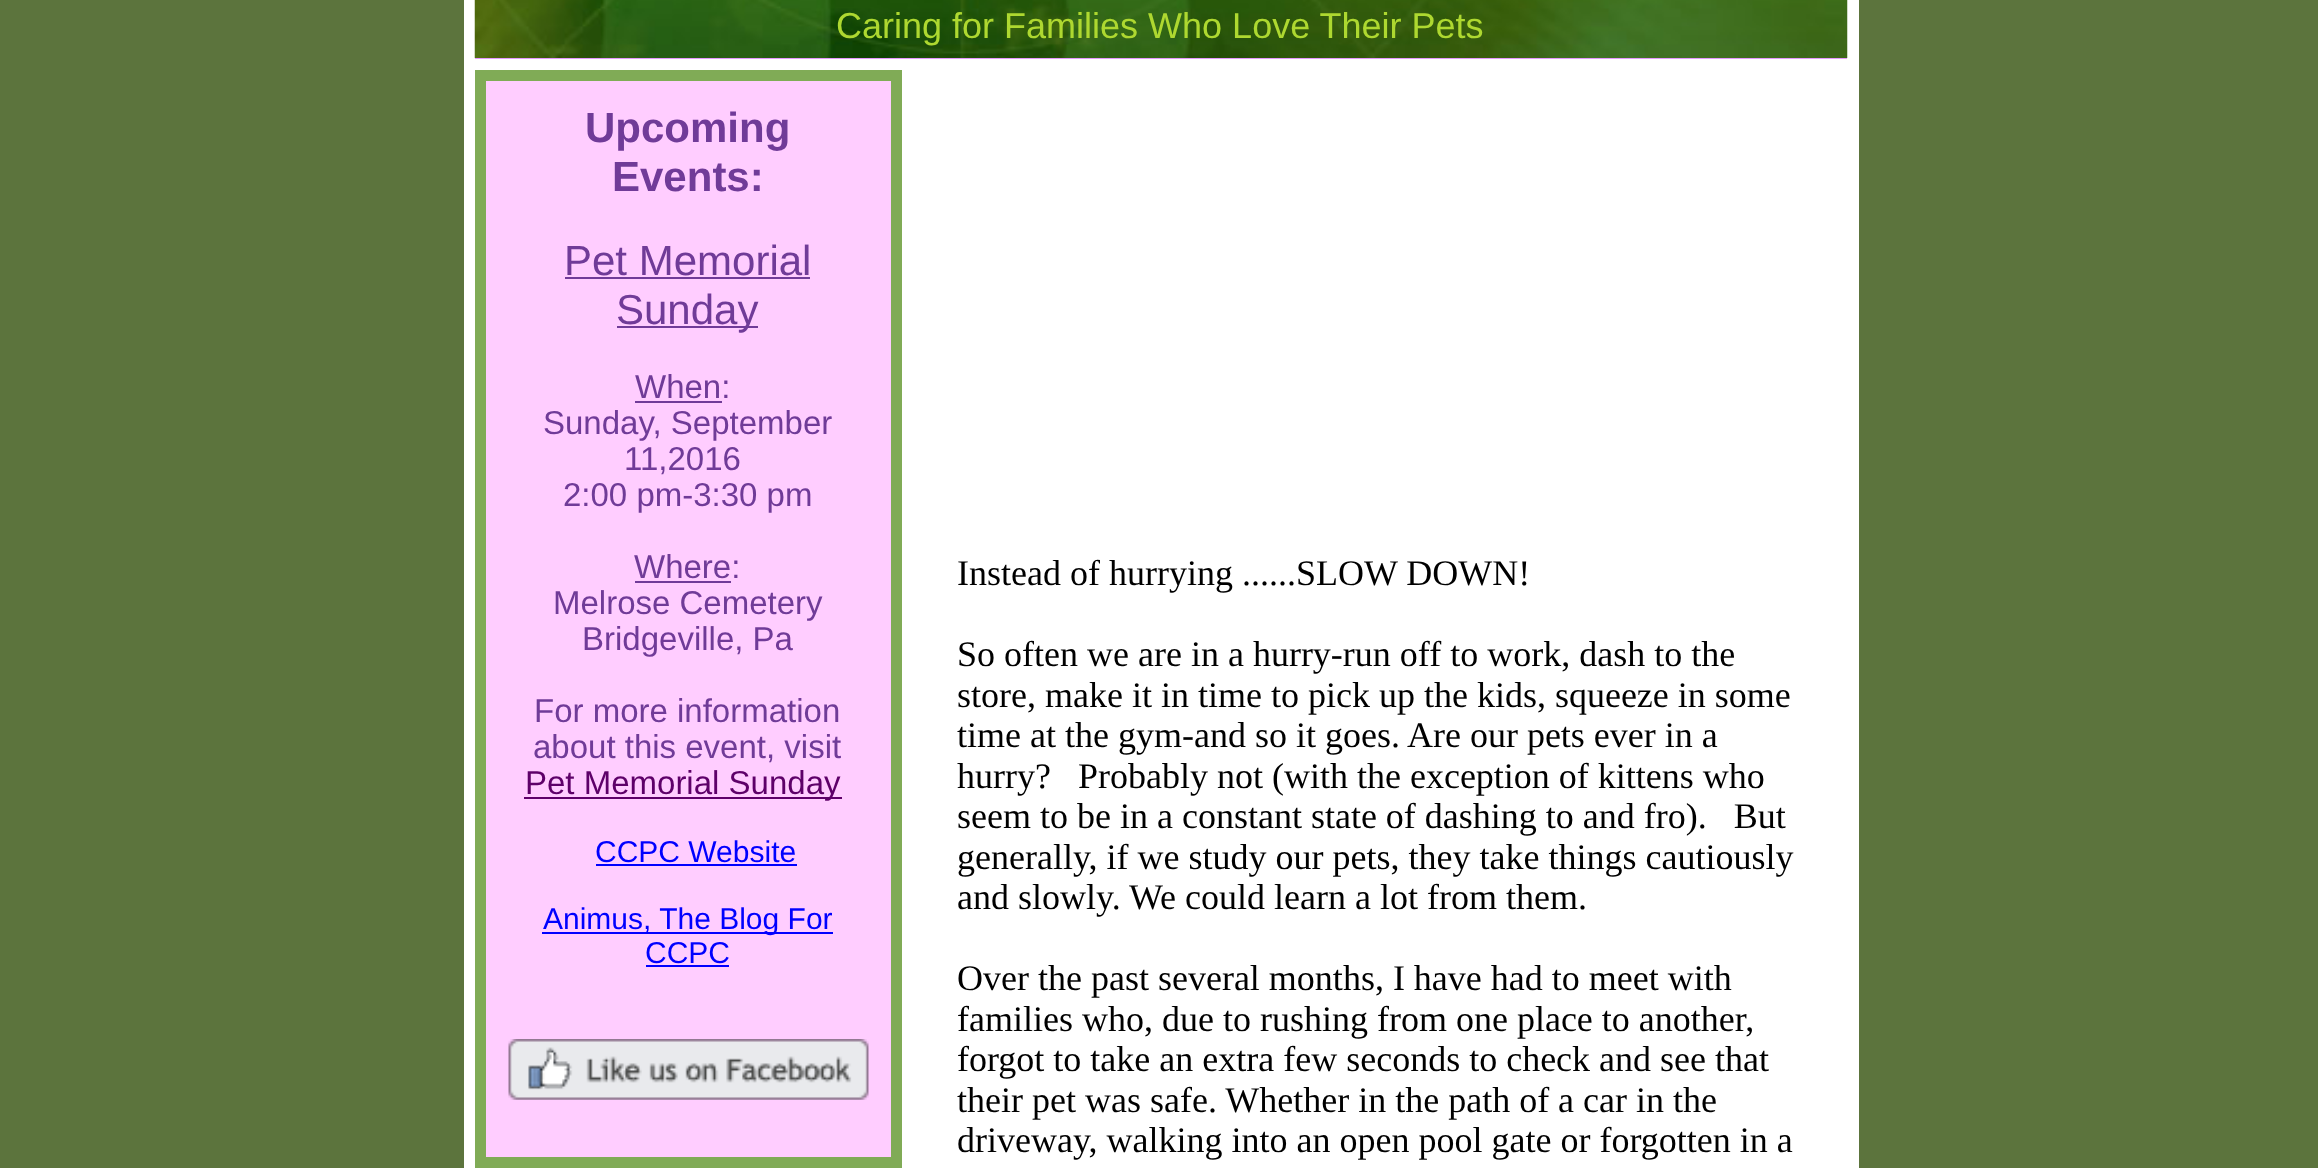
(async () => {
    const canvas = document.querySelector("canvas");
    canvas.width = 2318;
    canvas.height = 1168;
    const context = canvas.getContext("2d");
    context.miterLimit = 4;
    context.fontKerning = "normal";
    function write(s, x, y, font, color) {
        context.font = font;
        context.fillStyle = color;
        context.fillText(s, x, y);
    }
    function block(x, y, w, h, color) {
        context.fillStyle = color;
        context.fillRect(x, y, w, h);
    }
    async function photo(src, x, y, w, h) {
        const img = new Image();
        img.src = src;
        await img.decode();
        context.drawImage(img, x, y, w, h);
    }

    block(0, 0, 2318, 1168, "rgb(92, 116, 61)");
    block(464, 0, 1395, 1168, "rgb(255, 255, 255)");
    block(475, 58, 1372, 1, "rgb(229, 154, 255)");
    await photo("media/1.png", 474, 0, 1374, 58);
    write("Caring for Families Who Love Their Pets", 836, 38, "36px Liberation Sans", "rgb(174, 216, 48)");
    block(475, 70, 427, 1098, "rgb(128, 171, 86)");
    block(486, 81, 405, 1076, "rgb(255, 205, 255)");
    write("Upcoming", 585, 142, "bold 42px Liberation Sans", "rgb(112, 59, 152)");
    write("Events:", 612, 191, "bold 42px Liberation Sans", "rgb(112, 59, 152)");
    write("Pet Memorial", 564, 275, "42px Liberation Sans", "rgb(112, 59, 152)");
    block(565, 277, 245, 2, "rgb(112, 59, 152)");
    block(617, 326, 141, 2, "rgb(112, 59, 152)");
    write("Sunday", 616, 324, "42px Liberation Sans", "rgb(112, 59, 152)");
    write("When:", 635, 398, "33px Liberation Sans", "rgb(112, 59, 152)");
    block(635, 401, 87, 2, "rgb(112, 59, 152)");
    write("Sunday, September", 543, 434, "33px Liberation Sans", "rgb(112, 59, 152)");
    write("11,2016", 624, 470, "33px Liberation Sans", "rgb(112, 59, 152)");
    write("2:00 pm-3:30 pm", 563, 506, "33px Liberation Sans", "rgb(112, 59, 152)");
    write("Where:", 634, 578, "33px Liberation Sans", "rgb(112, 59, 152)");
    block(635, 581, 96, 2, "rgb(112, 59, 152)");
    write("Melrose Cemetery", 553, 614, "33px Liberation Sans", "rgb(112, 59, 152)");
    write("Bridgeville, Pa", 582, 650, "33px Liberation Sans", "rgb(112, 59, 152)");
    write("For more information", 534, 722, "33px Liberation Sans", "rgb(112, 59, 152)");
    write("about this event, visit", 533, 758, "33px Liberation Sans", "rgb(112, 59, 152)");
    block(524, 797, 318, 2, "rgb(94, 0, 105)");
    write("Pet Memorial Sunday", 525, 794, "33px Liberation Sans", "rgb(94, 0, 105)");
    write("CCPC Website", 595, 862, "30px Liberation Sans", "rgb(0, 0, 255)");
    block(596, 864, 201, 2, "rgb(0, 0, 255)");
    block(542, 932, 291, 2, "rgb(0, 0, 255)");
    write("Animus, The Blog For", 543, 929, "30px Liberation Sans", "rgb(0, 0, 255)");
    write("CCPC", 645, 963, "30px Liberation Sans", "rgb(0, 0, 255)");
    block(646, 965, 83, 2, "rgb(0, 0, 255)");
    await photo("media/2.png", 508, 1039, 361, 61);
    write("Instead of hurrying ......SLOW DOWN!", 957, 585, "36px Liberation Serif", "rgb(0, 0, 0)");
    write("So often we are in a hurry-run off to work, dash to the", 957, 666, "36px Liberation Serif", "rgb(0, 0, 0)");
    write("store, make it in time to pick up the kids, squeeze in some", 957, 707, "36px Liberation Serif", "rgb(0, 0, 0)");
    write("time at the gym-and so it goes. Are our pets ever in a", 957, 747, "36px Liberation Serif", "rgb(0, 0, 0)");
    write("hurry?   Probably not (with the exception of kittens who", 957, 788, "36px Liberation Serif", "rgb(0, 0, 0)");
    write("seem to be in a constant state of dashing to and fro).   But", 957, 828, "36px Liberation Serif", "rgb(0, 0, 0)");
    write("generally, if we study our pets, they take things cautiously", 957, 869, "36px Liberation Serif", "rgb(0, 0, 0)");
    write("and slowly. We could learn a lot from them.", 957, 909, "36px Liberation Serif", "rgb(0, 0, 0)");
    write("Over the past several months, I have had to meet with", 957, 990, "36px Liberation Serif", "rgb(0, 0, 0)");
    write("families who, due to rushing from one place to another,", 957, 1031, "36px Liberation Serif", "rgb(0, 0, 0)");
    write("forgot to take an extra few seconds to check and see that", 957, 1071, "36px Liberation Serif", "rgb(0, 0, 0)");
    write("their pet was safe. Whether in the path of a car in the", 957, 1112, "36px Liberation Serif", "rgb(0, 0, 0)");
    write("driveway, walking into an open pool gate or forgotten in a", 957, 1152, "36px Liberation Serif", "rgb(0, 0, 0)");
})();
